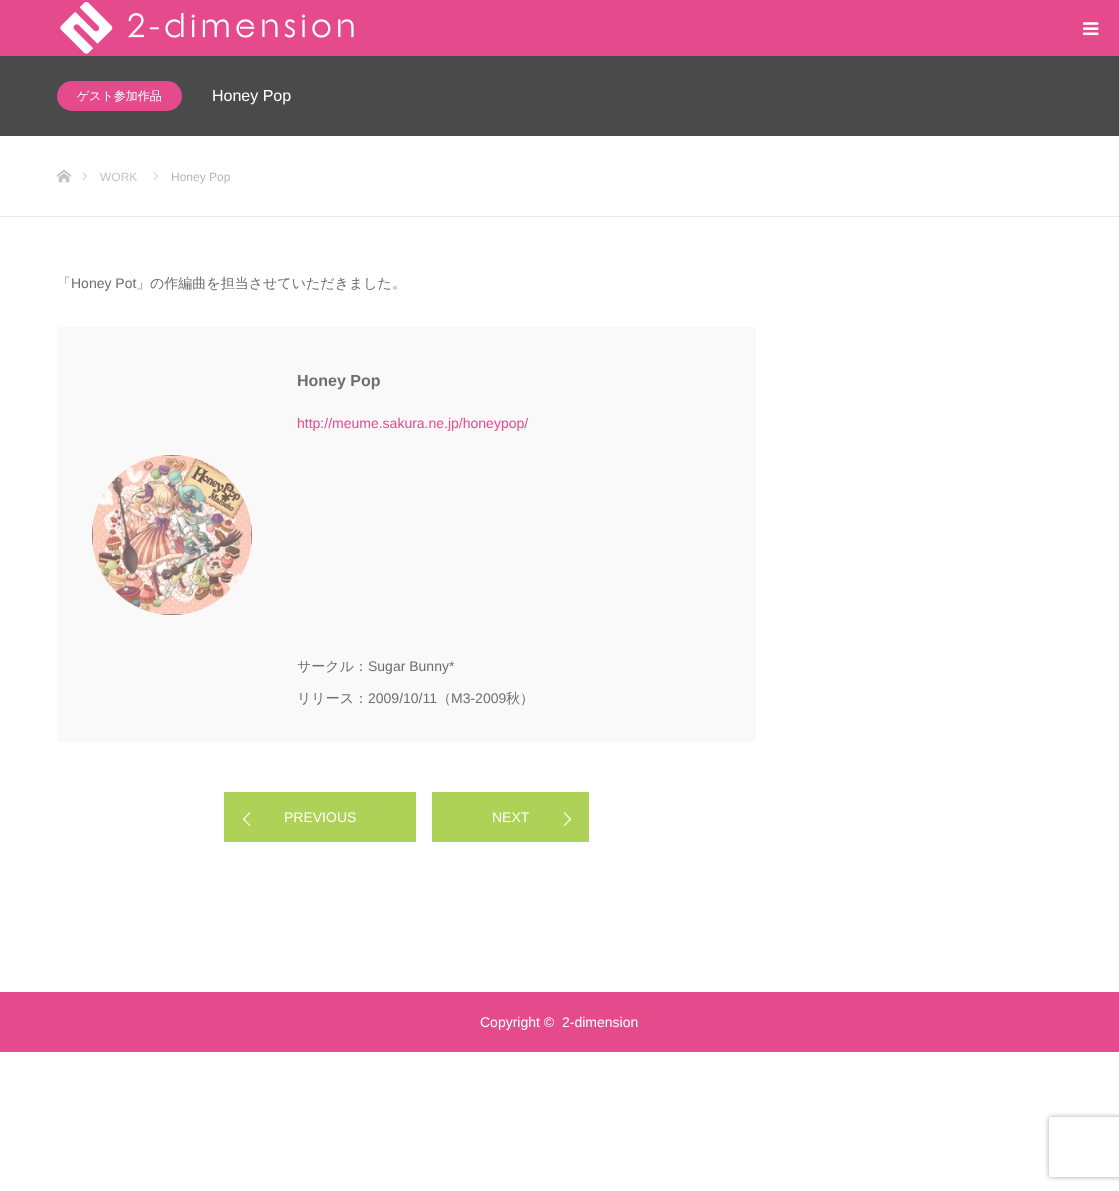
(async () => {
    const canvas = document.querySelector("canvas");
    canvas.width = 1119;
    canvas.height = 1191;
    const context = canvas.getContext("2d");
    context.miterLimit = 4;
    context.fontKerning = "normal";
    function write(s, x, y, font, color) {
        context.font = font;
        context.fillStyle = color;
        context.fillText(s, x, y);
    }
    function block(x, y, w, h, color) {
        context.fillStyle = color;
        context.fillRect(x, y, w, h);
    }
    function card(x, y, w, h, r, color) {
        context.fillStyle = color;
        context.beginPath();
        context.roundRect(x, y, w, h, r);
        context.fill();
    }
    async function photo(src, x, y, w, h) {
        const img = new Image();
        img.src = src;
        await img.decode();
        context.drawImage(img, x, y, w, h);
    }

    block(0, 0, 1119, 1191, "rgb(255, 255, 255)");
    block(0, 0, 1119, 56, "rgb(229, 74, 141)");
    await photo("media/1.png", 60, 2, 294, 52);
    await photo("media/2.png", 1083, 22, 16, 14);
    block(0, 56, 1119, 80, "rgb(74, 74, 74)");
    card(57, 81, 125, 30, 15, "rgb(229, 74, 141)");
    write("ゲスト参加作品", 77, 100, "500 12px WenQuanYi Zen Hei", "rgb(255, 255, 255)");
    write("Honey Pop", 212, 101, "16px Liberation Sans", "rgb(255, 255, 255)");
    block(0, 216, 1119, 1, "rgb(231, 231, 231)");
    await photo("media/3.png", 57, 169, 14, 14);
    await photo("media/4.png", 82, 172, 5, 8);
    write("WORK", 100, 181, "12px Liberation Sans", "rgb(195, 195, 195)");
    await photo("media/4.png", 153, 172, 5, 8);
    write("Honey Pop", 171, 181, "12px Liberation Sans", "rgb(183, 183, 183)");
    write("「", 57, 288, "500 14px WenQuanYi Zen Hei", "rgb(110, 110, 110)");
    write("Honey Pot", 71, 288, "14px Liberation Sans", "rgb(110, 110, 110)");
    write("」の作編曲を担当させていただきました。", 136, 288, "500 14px WenQuanYi Zen Hei", "rgb(110, 110, 110)");
    block(57, 327, 699, 415, "rgb(249, 249, 249)");
    await photo("media/5.png", 92, 455, 160, 160);
    write("Honey Pop", 297, 386, "bold 16px Liberation Sans", "rgb(110, 110, 110)");
    write("http://meume.sakura.ne.jp/honeypop/", 297, 428, "14px Liberation Sans", "rgb(229, 74, 141)");
    write("サークル：", 297, 671, "500 14px WenQuanYi Zen Hei", "rgb(110, 110, 110)");
    write("Sugar Bunny*", 368, 671, "14px Liberation Sans", "rgb(110, 110, 110)");
    write("リリース：", 297, 703, "500 14px WenQuanYi Zen Hei", "rgb(110, 110, 110)");
    write("2009/10/11", 368, 703, "14px Liberation Sans", "rgb(110, 110, 110)");
    write("（", 437, 703, "500 14px WenQuanYi Zen Hei", "rgb(110, 110, 110)");
    write("M3-2009", 451, 703, "14px Liberation Sans", "rgb(110, 110, 110)");
    write("秋）", 506, 703, "500 14px WenQuanYi Zen Hei", "rgb(110, 110, 110)");
    block(224, 792, 192, 50, "rgb(173, 210, 87)");
    await photo("media/6.png", 243, 812, 8, 14);
    write("PREVIOUS", 284, 822, "14px Liberation Sans", "rgb(255, 255, 255)");
    block(432, 792, 157, 50, "rgb(173, 210, 87)");
    write("NEXT", 492, 822, "14px Liberation Sans", "rgb(255, 255, 255)");
    await photo("media/7.png", 563, 812, 8, 14);
    block(0, 992, 1119, 60, "rgb(229, 74, 141)");
    write("Copyright ©", 480, 1027, "14px Liberation Sans", "rgb(255, 255, 255)");
    write("2-dimension", 562, 1027, "14px Liberation Sans", "rgb(255, 255, 255)");
    context.save();
    context.beginPath();
    context.moveTo(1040, 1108);
    context.lineTo(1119, 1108);
    context.lineTo(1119, 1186);
    context.lineTo(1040, 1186);
    context.closePath();
    context.moveTo(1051, 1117);
    context.lineTo(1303, 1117);
    context.bezierCurveTo(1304, 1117, 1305, 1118, 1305, 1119);
    context.lineTo(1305, 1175);
    context.bezierCurveTo(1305, 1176, 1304, 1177, 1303, 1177);
    context.lineTo(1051, 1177);
    context.bezierCurveTo(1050, 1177, 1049, 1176, 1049, 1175);
    context.lineTo(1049, 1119);
    context.bezierCurveTo(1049, 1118, 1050, 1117, 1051, 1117);
    context.closePath();
    context.clip("evenodd");
    context.fillStyle = "rgb(165, 165, 165)";
    context.filter = "blur(2.5px)";
    context.beginPath();
    context.roundRect(1049, 1117, 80, 60, 2);
    context.fill();
    context.filter = "none";
    context.restore();
})();
